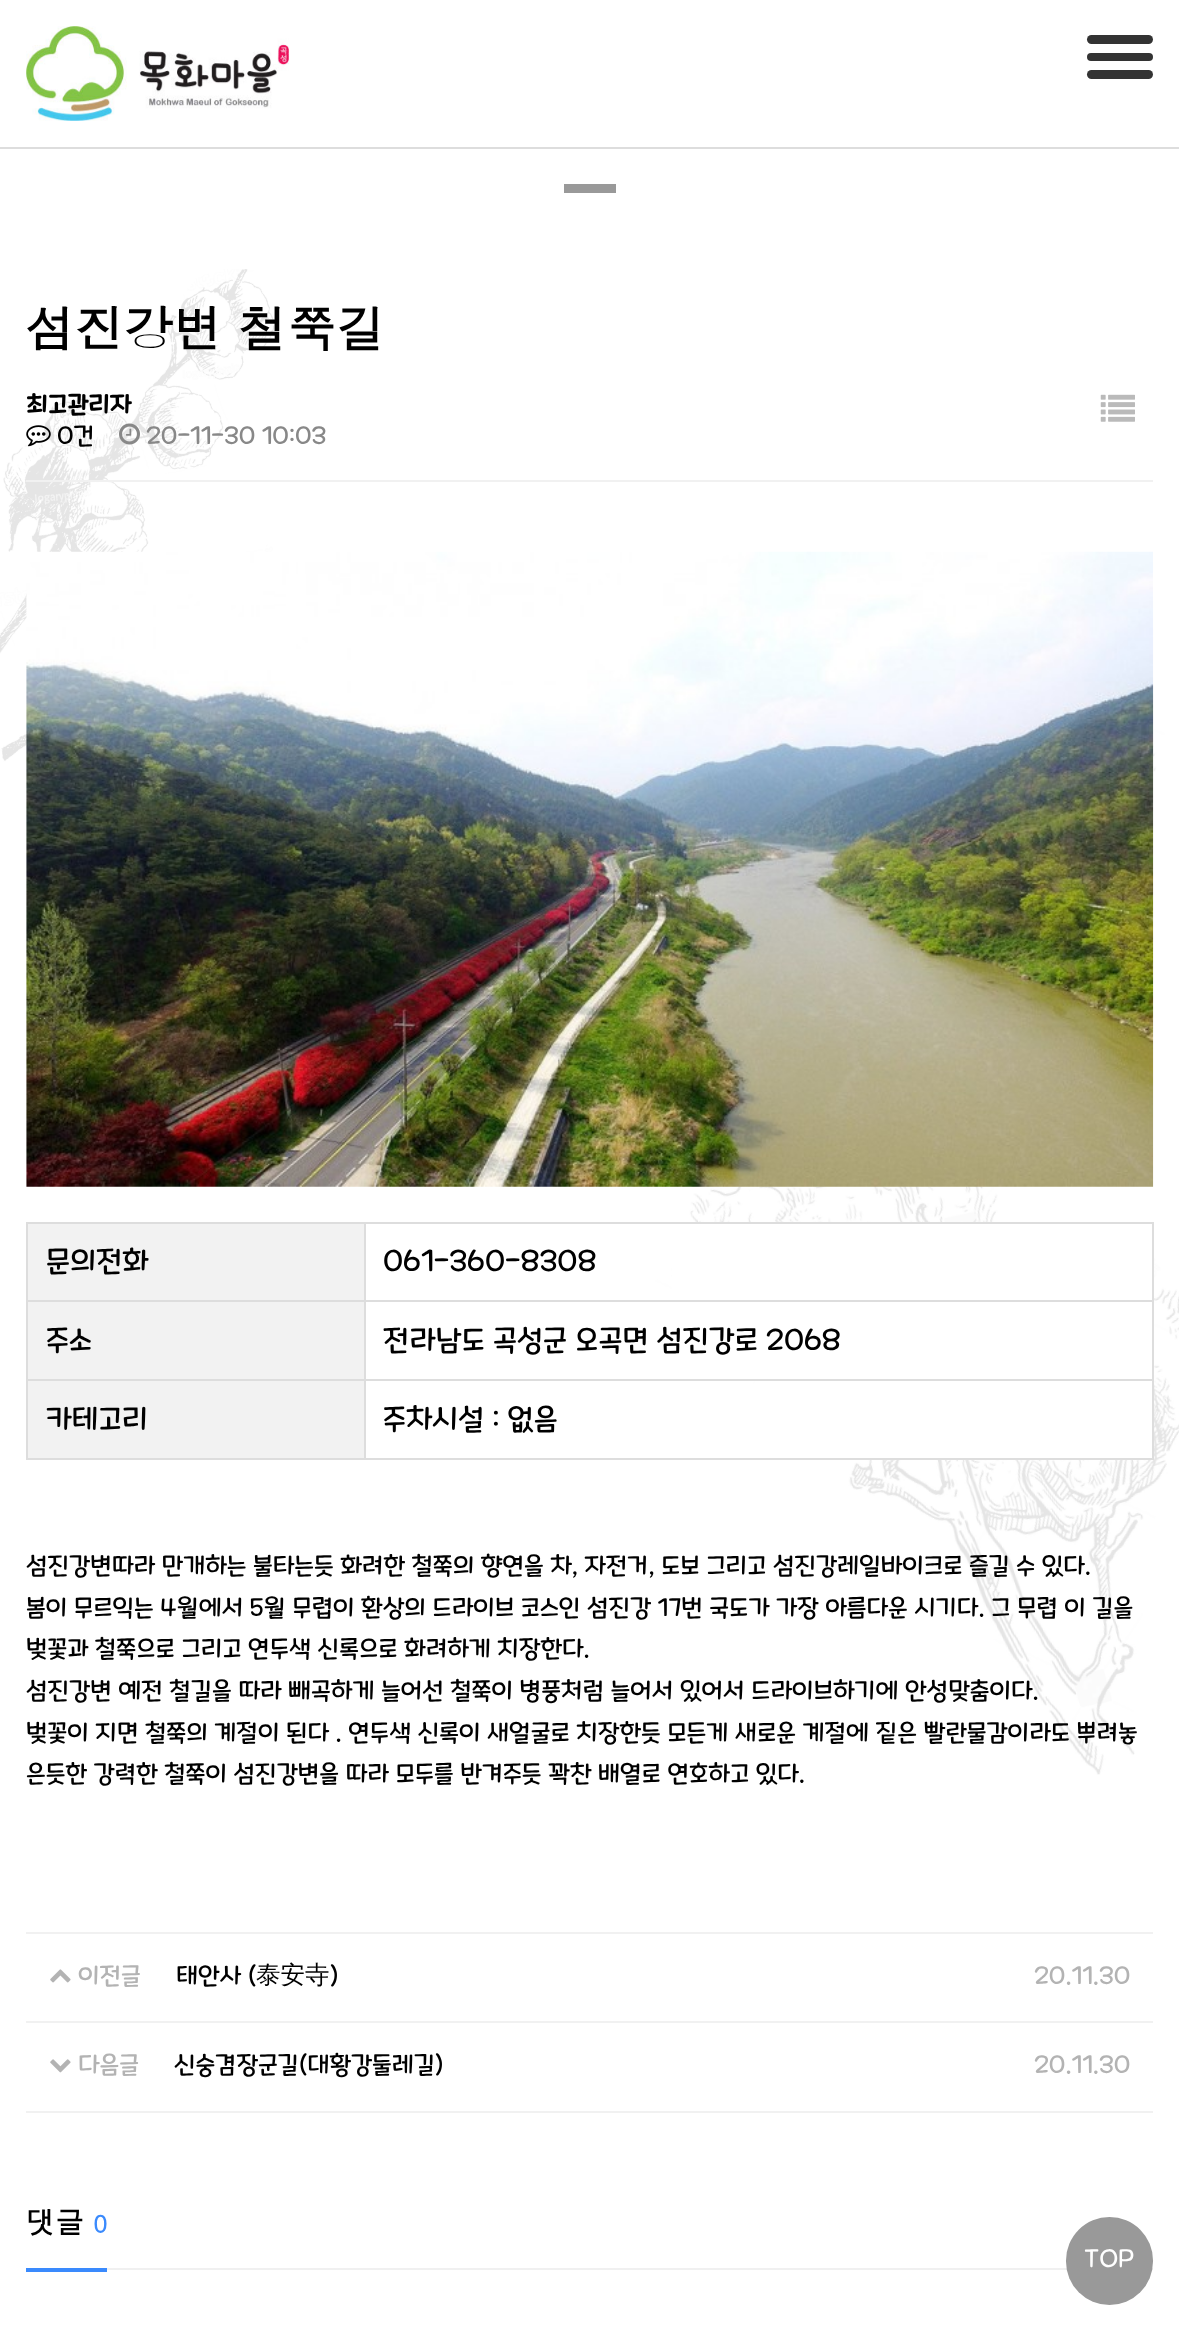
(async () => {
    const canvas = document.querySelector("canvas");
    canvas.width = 1179;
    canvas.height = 2331;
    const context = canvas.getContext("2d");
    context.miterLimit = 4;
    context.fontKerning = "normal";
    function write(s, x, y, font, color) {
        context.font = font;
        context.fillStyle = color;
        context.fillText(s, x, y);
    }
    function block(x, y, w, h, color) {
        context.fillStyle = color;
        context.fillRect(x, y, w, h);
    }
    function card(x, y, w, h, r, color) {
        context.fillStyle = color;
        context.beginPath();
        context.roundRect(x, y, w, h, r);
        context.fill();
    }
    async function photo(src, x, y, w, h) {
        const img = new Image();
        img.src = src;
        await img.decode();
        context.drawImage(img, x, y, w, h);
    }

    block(0, 0, 1179, 2331, "rgb(255, 255, 255)");
    block(0, 147, 1179, 2, "rgb(221, 221, 221)");
    await photo("media/1.png", 26, 26, 263, 95);
    card(1087, 35, 66, 9, 4.5, "rgb(51, 51, 51)");
    card(1087, 53, 66, 8, 4, "rgb(51, 51, 51)");
    card(1087, 70, 66, 9, 4.5, "rgb(51, 51, 51)");
    await photo("media/2.png", 0, 269, 1179, 1506);
    block(564, 184, 52, 9, "rgb(153, 153, 153)");
    write("섬진강변 철쭉길", 26, 347, "bold 49px Dotum", "rgb(0, 0, 0)");
    block(26, 480, 1127, 2, "rgb(241, 241, 241)");
    write("최고관리자", 26, 412, "bold 24.5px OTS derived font", "rgb(0, 0, 0)");
    await photo("media/3.png", 26, 425, 25, 22);
    write("0건", 57, 443, "300 24.5px OTS derived font", "rgb(0, 0, 0)");
    await photo("media/4.png", 119, 423, 21, 22);
    write("20-11-30 10:03", 146, 443, "300 24.5px OTS derived font", "rgb(136, 136, 136)");
    await photo("media/5.png", 1100, 394, 35, 28);
    await photo("media/6.png", 26, 551, 1128, 636);
    block(28, 1224, 336, 76, "rgb(242, 242, 242)");
    block(364, 1222, 789, 2, "rgb(221, 221, 221)");
    block(364, 1300, 789, 2, "rgb(221, 221, 221)");
    block(364, 1379, 789, 2, "rgb(221, 221, 221)");
    block(1152, 1379, 2, 81, "rgb(221, 221, 221)");
    block(364, 1458, 789, 2, "rgb(221, 221, 221)");
    block(364, 1379, 2, 81, "rgb(221, 221, 221)");
    block(26, 1379, 340, 2, "rgb(221, 221, 221)");
    block(364, 1300, 2, 81, "rgb(221, 221, 221)");
    block(26, 1300, 340, 2, "rgb(221, 221, 221)");
    block(364, 1222, 2, 80, "rgb(221, 221, 221)");
    block(26, 1222, 340, 2, "rgb(221, 221, 221)");
    block(26, 1458, 340, 2, "rgb(221, 221, 221)");
    block(26, 1379, 2, 81, "rgb(221, 221, 221)");
    block(26, 1300, 2, 81, "rgb(221, 221, 221)");
    block(26, 1222, 2, 80, "rgb(221, 221, 221)");
    write("문의전화", 46, 1270, "300 29.75px OTS derived font", "rgb(0, 0, 0)");
    block(672, 1224, 480, 76, "rgb(255, 255, 255)");
    block(1152, 1300, 2, 81, "rgb(221, 221, 221)");
    block(1152, 1222, 2, 80, "rgb(221, 221, 221)");
    write("061-360-8308", 383, 1270, "300 29.75px OTS derived font", "rgb(0, 0, 0)");
    block(28, 1302, 336, 77, "rgb(242, 242, 242)");
    write("주소", 46, 1349, "300 29.75px OTS derived font", "rgb(0, 0, 0)");
    block(671, 1302, 481, 77, "rgb(255, 255, 255)");
    write("전라남도 곡성군 오곡면 섬진강로 2068", 383, 1349, "300 29.75px OTS derived font", "rgb(0, 0, 0)");
    block(28, 1381, 336, 77, "rgb(242, 242, 242)");
    write("카테고리", 46, 1428, "300 29.75px OTS derived font", "rgb(0, 0, 0)");
    block(755, 1381, 397, 77, "rgb(255, 255, 255)");
    write("주차시설 : 없음", 383, 1428, "300 29.75px OTS derived font", "rgb(0, 0, 0)");
    write("섬진강변따라 만개하는 불타는듯 화려한 철쭉의 향연을 차, 자전거, 도보 그리고 섬진강레일바이크로 즐길 수 있다.", 26, 1573, "300 24.5px OTS derived font", "rgb(0, 0, 0)");
    write("봄이 무르익는 4월에서 5월 무렵이 환상의 드라이브 코스인 섬진강 17번 국도가 가장 아름다운 시기다. 그 무렵 이 길을", 26, 1615, "300 24.5px OTS derived font", "rgb(0, 0, 0)");
    write("벚꽃과 철쭉으로 그리고 연두색 신록으로 화려하게 치장한다.", 26, 1656, "300 24.5px OTS derived font", "rgb(0, 0, 0)");
    write("섬진강변 예전 철길을 따라 빼곡하게 늘어선 철쭉이 병풍처럼 늘어서 있어서 드라이브하기에 안성맞춤이다.", 26, 1698, "300 24.5px OTS derived font", "rgb(0, 0, 0)");
    write("벚꽃이 지면 철쭉의 계절이 된다 . 연두색 신록이 새얼굴로 치장한듯 모든게 새로운 계절에 짙은 빨란물감이라도 뿌려놓", 26, 1740, "300 24.5px OTS derived font", "rgb(0, 0, 0)");
    write("은듯한 강력한 철쭉이 섬진강변을 따라 모두를 반겨주듯 꽉찬 배열로 연호하고 있다.", 26, 1781, "300 24.5px OTS derived font", "rgb(0, 0, 0)");
    block(26, 1932, 1127, 2, "rgb(241, 241, 241)");
    await photo("media/7.png", 50, 1969, 21, 14);
    write("이전글", 78, 1983, "300 24.5px OTS derived font", "rgb(179, 179, 179)");
    write("태안사 (", 176, 1983, "300 24.5px OTS derived font", "rgb(0, 0, 0)");
    write("泰安寺", 256, 1983, "500 24.5px WenQuanYi Zen Hei", "rgb(0, 0, 0)");
    write(")", 330, 1983, "300 24.5px OTS derived font", "rgb(0, 0, 0)");
    write("20.11.30", 1034, 1983, "300 24.5px OTS derived font", "rgb(179, 179, 179)");
    block(26, 2021, 1127, 2, "rgb(241, 241, 241)");
    block(26, 2111, 1127, 2, "rgb(241, 241, 241)");
    await photo("media/8.png", 50, 2059, 21, 14);
    write("다음글", 78, 2072, "300 24.5px OTS derived font", "rgb(179, 179, 179)");
    write("신숭겸장군길(대황강둘레길)", 174, 2072, "300 24.5px OTS derived font", "rgb(0, 0, 0)");
    write("20.11.30", 1034, 2072, "300 24.5px OTS derived font", "rgb(179, 179, 179)");
    block(107, 2268, 1046, 2, "rgb(240, 240, 240)");
    write("댓글", 26, 2233, "bold 29px Dotum", "rgb(0, 0, 0)");
    write("0", 93, 2233, "bold 24.5px Dotum", "rgb(58, 138, 253)");
    block(26, 2268, 81, 4, "rgb(58, 138, 253)");
    card(1066, 2217, 87, 88, 43.5, "rgb(153, 153, 153)");
    write("TOP", 1084, 2266, "300 24.5px OTS derived font", "rgb(255, 255, 255)");
})();
